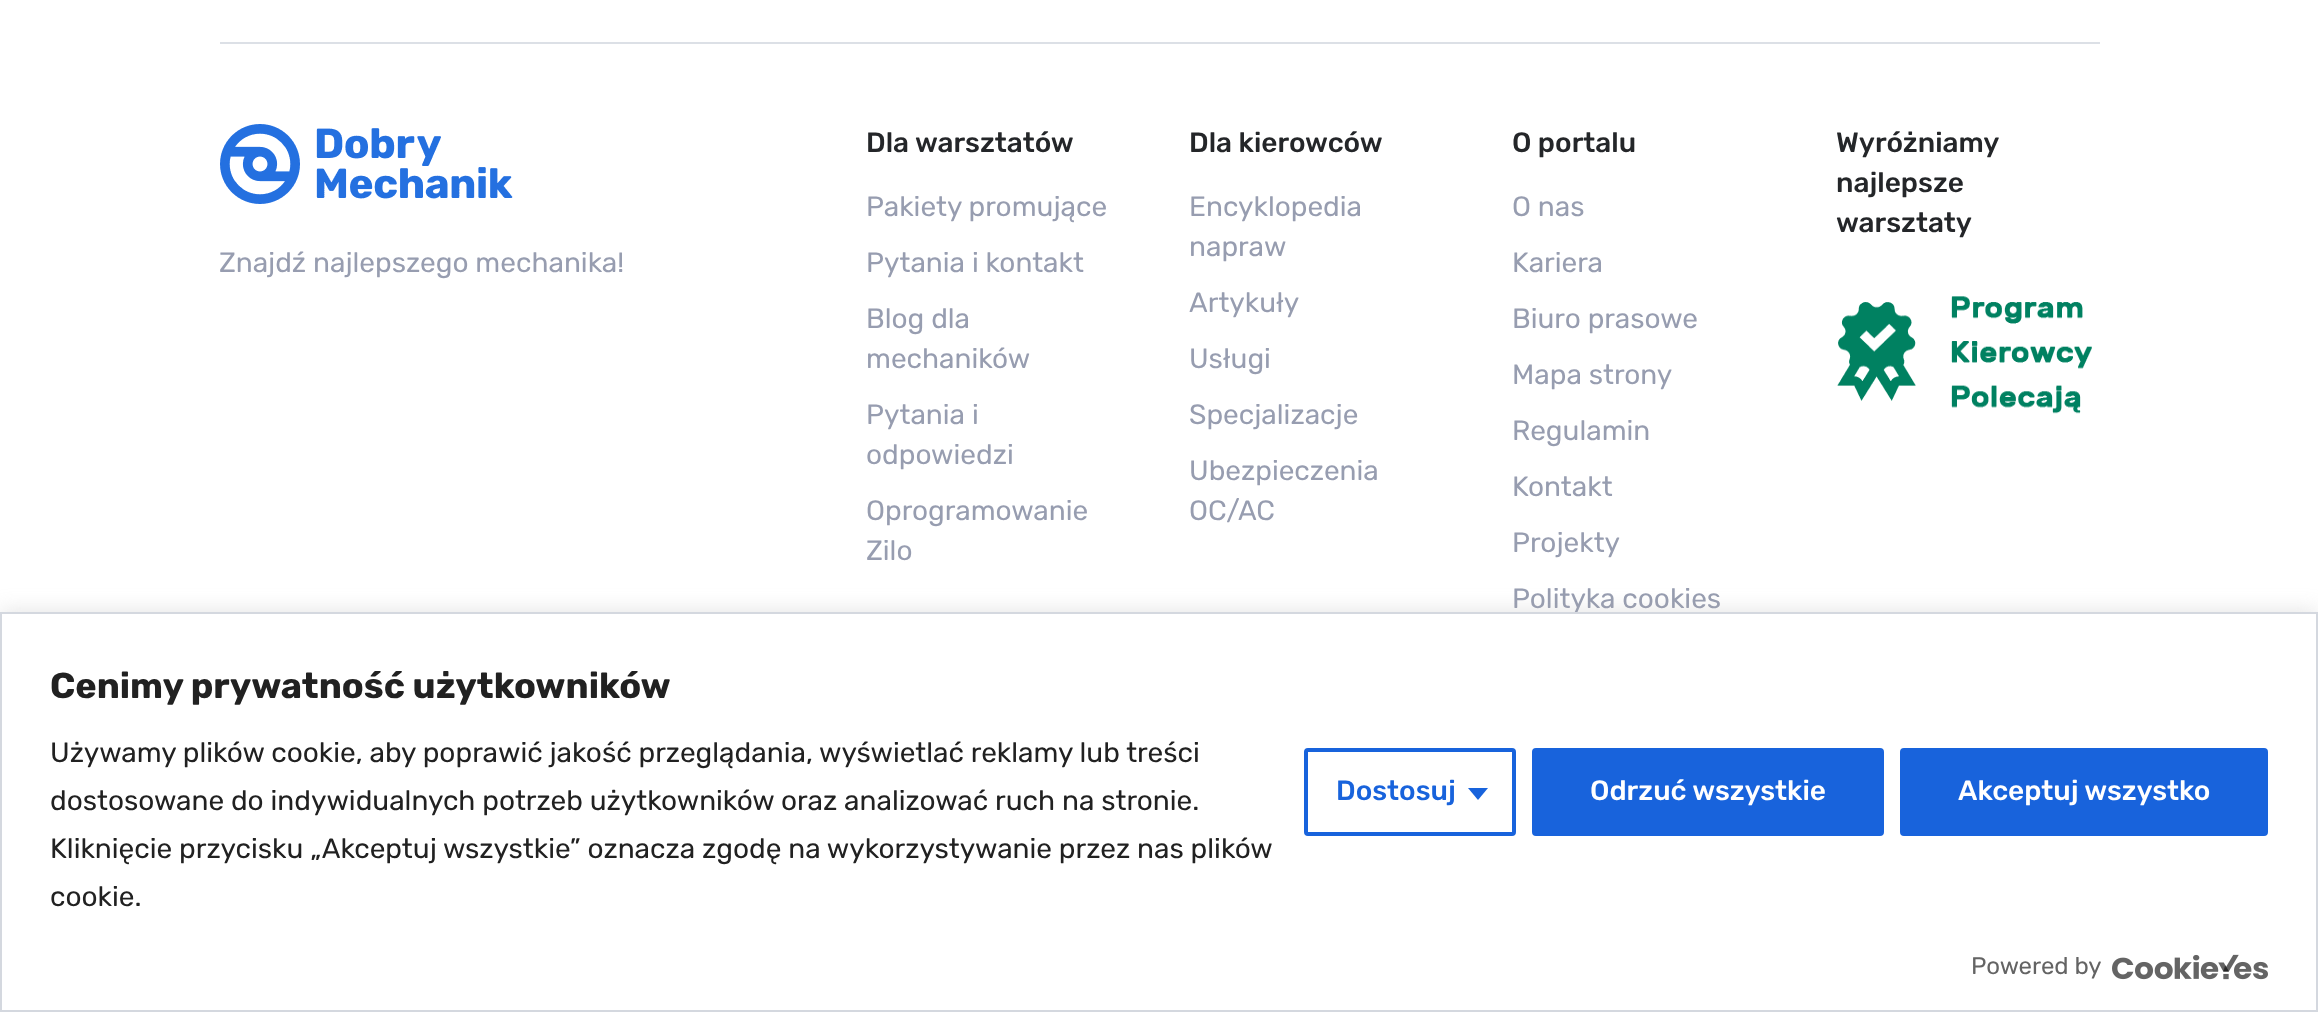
(async () => {
    const canvas = document.querySelector("canvas");
    canvas.width = 2318;
    canvas.height = 1012;
    const context = canvas.getContext("2d");
    context.miterLimit = 4;
    context.fontKerning = "normal";
    function write(s, x, y, font, color) {
        context.font = font;
        context.fillStyle = color;
        context.fillText(s, x, y);
    }
    function block(x, y, w, h, color) {
        context.fillStyle = color;
        context.fillRect(x, y, w, h);
    }
    async function photo(src, x, y, w, h) {
        const img = new Image();
        img.src = src;
        await img.decode();
        context.drawImage(img, x, y, w, h);
    }

    block(0, 0, 2318, 1012, "rgb(255, 255, 255)");
    block(220, 42, 1880, 2, "rgb(220, 224, 230)");
    await photo("media/1.png", 220, 124, 293, 80);
    write("Znajdź najlepszego mechanika!", 219, 272, "28px Rubik", "rgb(151, 157, 176)");
    write("Dla warsztatów", 866, 152, "500 28px Rubik", "rgb(36, 38, 41)");
    write("Pakiety promujące", 866, 216, "28px Rubik", "rgb(151, 157, 176)");
    write("Pytania i kontakt", 866, 272, "28px Rubik", "rgb(151, 157, 176)");
    write("Blog dla", 866, 328, "28px Rubik", "rgb(151, 157, 176)");
    write("mechaników", 866, 368, "28px Rubik", "rgb(151, 157, 176)");
    write("Pytania i", 866, 424, "28px Rubik", "rgb(151, 157, 176)");
    write("odpowiedzi", 866, 464, "28px Rubik", "rgb(151, 157, 176)");
    write("Oprogramowanie", 866, 520, "28px Rubik", "rgb(151, 157, 176)");
    write("Zilo", 866, 560, "28px Rubik", "rgb(151, 157, 176)");
    write("Dla kierowców", 1189, 152, "500 28px Rubik", "rgb(36, 38, 41)");
    write("Encyklopedia", 1189, 216, "28px Rubik", "rgb(151, 157, 176)");
    write("napraw", 1189, 256, "28px Rubik", "rgb(151, 157, 176)");
    write("Artykuły", 1189, 312, "28px Rubik", "rgb(151, 157, 176)");
    write("Usługi", 1189, 368, "28px Rubik", "rgb(151, 157, 176)");
    write("Specjalizacje", 1189, 424, "28px Rubik", "rgb(151, 157, 176)");
    write("Ubezpieczenia", 1189, 480, "28px Rubik", "rgb(151, 157, 176)");
    write("OC/AC", 1189, 520, "28px Rubik", "rgb(151, 157, 176)");
    write("O portalu", 1512, 152, "500 28px Rubik", "rgb(36, 38, 41)");
    write("O nas", 1512, 216, "28px Rubik", "rgb(151, 157, 176)");
    write("Kariera", 1512, 272, "28px Rubik", "rgb(151, 157, 176)");
    write("Biuro prasowe", 1512, 328, "28px Rubik", "rgb(151, 157, 176)");
    write("Mapa strony", 1512, 384, "28px Rubik", "rgb(151, 157, 176)");
    write("Regulamin", 1512, 440, "28px Rubik", "rgb(151, 157, 176)");
    write("Kontakt", 1512, 496, "28px Rubik", "rgb(151, 157, 176)");
    write("Projekty", 1512, 552, "28px Rubik", "rgb(151, 157, 176)");
    write("Polityka cookies", 1512, 608, "28px Rubik", "rgb(151, 157, 176)");
    write("Wyróżniamy", 1836, 152, "500 28px Rubik", "rgb(36, 38, 41)");
    write("najlepsze", 1836, 192, "500 28px Rubik", "rgb(36, 38, 41)");
    write("warsztaty", 1836, 232, "500 28px Rubik", "rgb(36, 38, 41)");
    await photo("media/2.png", 1837, 296, 255, 118);
    context.fillStyle = "rgba(172, 171, 171, 0.3)";
    context.filter = "blur(10px)";
    context.beginPath();
    context.rect(0, 610, 2318, 400);
    context.fill();
    context.filter = "none";
    context.fillStyle = "rgb(255, 255, 255)";
    context.beginPath();
    context.rect(1, 613, 2316, 398);
    context.fill();
    context.strokeStyle = "rgb(212, 216, 223)";
    context.lineWidth = 2;
    context.stroke();
    write("Cenimy prywatność użytkowników", 50, 698, "bold 36px Rubik", "rgb(33, 33, 33)");
    write("Używamy plików cookie, aby poprawić jakość przeglądania, wyświetlać reklamy lub treści", 50, 762, "28px Rubik", "rgb(33, 33, 33)");
    write("dostosowane do indywidualnych potrzeb użytkowników oraz analizować ruch na stronie.", 50, 810, "28px Rubik", "rgb(33, 33, 33)");
    write("Kliknięcie przycisku „Akceptuj wszystkie” oznacza zgodę na wykorzystywanie przez nas plików", 50, 858, "28px Rubik", "rgb(33, 33, 33)");
    write("cookie.", 50, 906, "28px Rubik", "rgb(33, 33, 33)");
    context.beginPath();
    context.roundRect(1306, 750, 208, 84, 2);
    context.strokeStyle = "rgb(24, 99, 220)";
    context.lineWidth = 4;
    context.stroke();
    write("Dostosuj", 1336, 800, "500 28px Rubik", "rgb(24, 99, 220)");
    context.beginPath();
    context.moveTo(1468, 788);
    context.lineTo(1488, 788);
    context.lineTo(1478, 800);
    context.closePath();
    context.fill();
    context.beginPath();
    context.roundRect(1534, 750, 348, 84, 2);
    context.fill();
    context.stroke();
    write("Odrzuć wszystkie", 1590, 800, "500 28px Rubik", "rgb(255, 255, 255)");
    context.fillStyle = "rgb(24, 99, 220)";
    context.beginPath();
    context.roundRect(1902, 750, 364, 84, 2);
    context.fill();
    context.stroke();
    write("Akceptuj wszystko", 1958, 800, "500 28px Rubik", "rgb(255, 255, 255)");
    write("Powered by", 1971, 974, "24px Rubik", "rgb(100, 100, 100)");
    await photo("media/3.png", 2112, 954, 156, 26);
})();
